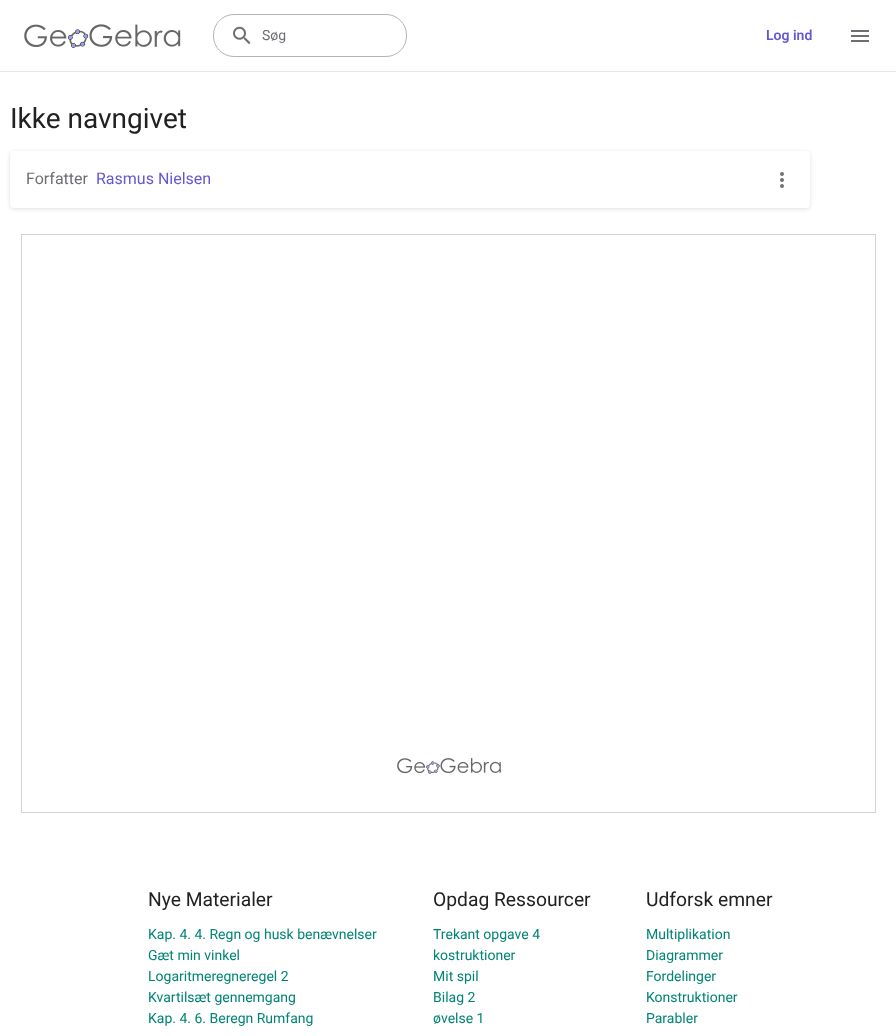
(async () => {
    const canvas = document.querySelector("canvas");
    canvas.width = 896;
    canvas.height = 1036;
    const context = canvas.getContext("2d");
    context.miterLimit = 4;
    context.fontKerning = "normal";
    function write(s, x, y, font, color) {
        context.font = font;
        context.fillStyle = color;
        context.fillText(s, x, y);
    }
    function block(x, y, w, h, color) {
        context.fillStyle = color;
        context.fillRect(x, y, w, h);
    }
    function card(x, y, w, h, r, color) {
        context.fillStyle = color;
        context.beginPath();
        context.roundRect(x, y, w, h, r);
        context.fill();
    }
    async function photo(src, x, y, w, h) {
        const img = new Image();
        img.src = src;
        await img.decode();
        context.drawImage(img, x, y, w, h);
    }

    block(0, 0, 896, 1036, "rgb(255, 255, 255)");
    block(0, 71, 896, 1, "rgb(230, 230, 235)");
    await photo("media/1.png", 24, 24, 157, 24);
    context.beginPath();
    context.roundRect(213.5, 14.5, 193, 42, 20.5);
    context.strokeStyle = "rgb(180, 179, 186)";
    context.stroke();
    await photo("media/2.png", 233, 26, 18, 19);
    write("Søg", 262, 40, "14px Roboto", "rgb(110, 109, 115)");
    write("Log ind", 766, 40, "600 14px Roboto", "rgb(101, 87, 210)");
    await photo("media/3.png", 851, 30, 18, 12);
    write("Ikke navngivet", 10, 128, "28px Roboto", "rgb(33, 33, 33)");
    context.fillStyle = "rgba(28, 28, 31, 0.14)";
    context.filter = "blur(2px)";
    context.beginPath();
    context.roundRect(10, 152, 800, 57, 4);
    context.fill();
    context.filter = "none";
    card(10, 151, 800, 57, 4, "rgb(255, 255, 255)");
    write("Forfatter", 26, 184, "16px Roboto", "rgb(110, 109, 115)");
    write("Rasmus Nielsen", 96, 184, "16px Roboto", "rgb(101, 87, 210)");
    await photo("media/4.png", 780, 172, 4, 16);
    await photo("media/5.png", 397, 758, 104, 16);
    context.strokeStyle = "rgb(211, 211, 211)";
    context.strokeRect(21.5, 234.5, 854, 578);
    write("Nye Materialer", 148, 906, "19.25px Roboto", "rgb(33, 33, 33)");
    write("Kap. 4. 4. Regn og husk benævnelser", 148, 939, "14px Roboto", "rgb(0, 132, 117)");
    write("Gæt min vinkel", 148, 960, "14px Roboto", "rgb(0, 132, 117)");
    write("Logaritmeregneregel 2", 148, 981, "14px Roboto", "rgb(0, 132, 117)");
    write("Kvartilsæt gennemgang", 148, 1002, "14px Roboto", "rgb(0, 132, 117)");
    write("Kap. 4. 6. Beregn Rumfang", 148, 1023, "14px Roboto", "rgb(0, 132, 117)");
    write("Opdag Ressourcer", 433, 906, "19.25px Roboto", "rgb(33, 33, 33)");
    write("Trekant opgave 4", 433, 939, "14px Roboto", "rgb(0, 132, 117)");
    write("kostruktioner", 433, 960, "14px Roboto", "rgb(0, 132, 117)");
    write("Mit spil", 433, 981, "14px Roboto", "rgb(0, 132, 117)");
    write("Bilag 2", 433, 1002, "14px Roboto", "rgb(0, 132, 117)");
    write("øvelse 1", 433, 1023, "14px Roboto", "rgb(0, 132, 117)");
    write("Udforsk emner", 646, 906, "19.25px Roboto", "rgb(33, 33, 33)");
    write("Multiplikation", 646, 939, "14px Roboto", "rgb(0, 132, 117)");
    write("Diagrammer", 646, 960, "14px Roboto", "rgb(0, 132, 117)");
    write("Fordelinger", 646, 981, "14px Roboto", "rgb(0, 132, 117)");
    write("Konstruktioner", 646, 1002, "14px Roboto", "rgb(0, 132, 117)");
    write("Parabler", 646, 1023, "14px Roboto", "rgb(0, 132, 117)");
})();
